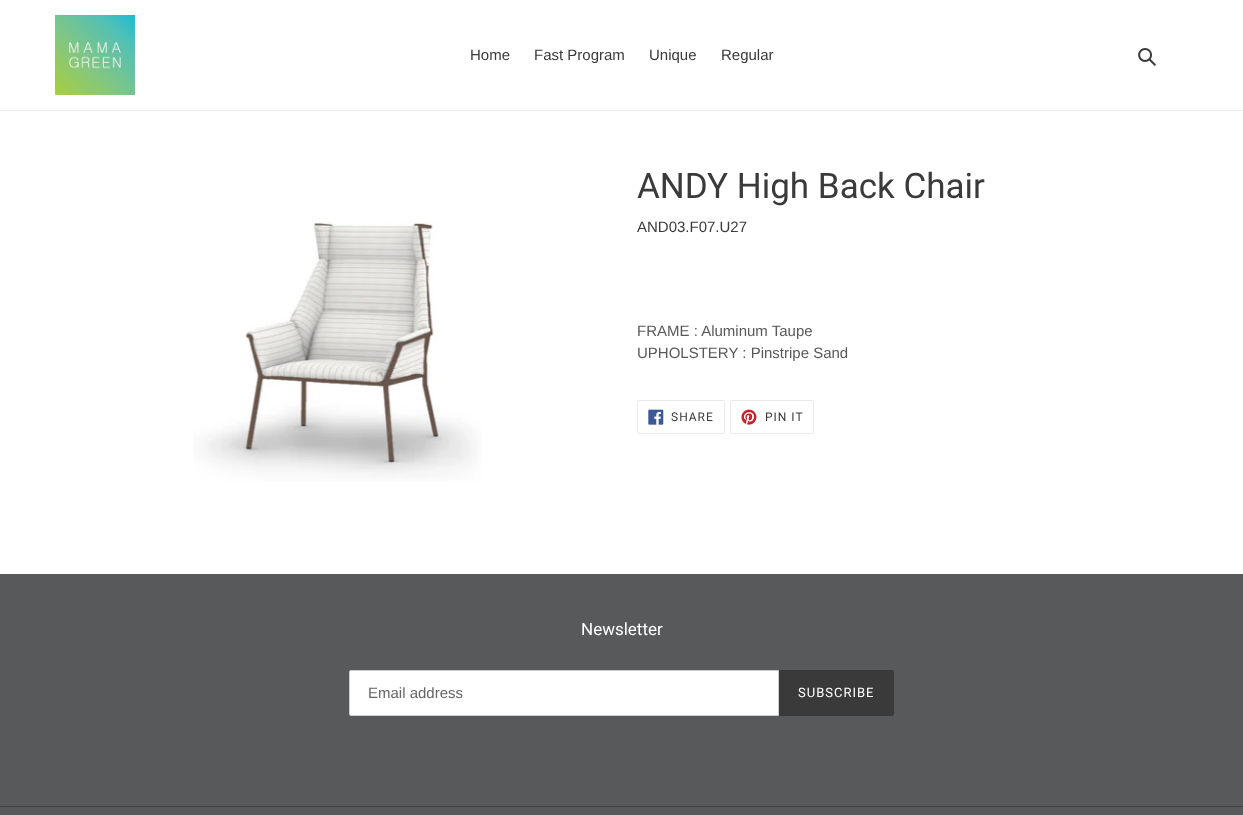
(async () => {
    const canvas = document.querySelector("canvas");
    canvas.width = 1243;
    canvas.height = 815;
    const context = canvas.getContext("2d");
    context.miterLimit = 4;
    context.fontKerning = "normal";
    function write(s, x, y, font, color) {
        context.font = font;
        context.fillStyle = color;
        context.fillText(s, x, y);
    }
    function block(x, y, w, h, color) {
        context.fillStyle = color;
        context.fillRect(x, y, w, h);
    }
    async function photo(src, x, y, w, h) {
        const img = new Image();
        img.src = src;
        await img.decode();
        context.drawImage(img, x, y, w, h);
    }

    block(0, 0, 1243, 815, "rgb(255, 255, 255)");
    block(0, 110, 1243, 1, "rgb(235, 235, 235)");
    await photo("media/1.png", 55, 15, 80, 80);
    write("Home", 470, 60, "15px Liberation Sans", "rgb(58, 58, 58)");
    write("Fast Program", 534, 60, "15px Liberation Sans", "rgb(58, 58, 58)");
    write("Unique", 649, 60, "15px Liberation Sans", "rgb(58, 58, 58)");
    write("Regular", 721, 60, "15px Liberation Sans", "rgb(58, 58, 58)");
    await photo("media/2.png", 1138, 48, 18, 18);
    await photo("media/3.png", 193, 221, 289, 261);
    write("ANDY High Back Chair", 637, 198, "35px Roboto", "rgb(58, 58, 58)");
    write("AND03.F07.U27", 637, 232, "15px Liberation Sans", "rgb(58, 58, 58)");
    write("FRAME : Aluminum Taupe", 637, 336, "15px Liberation Sans", "rgb(88, 89, 91)");
    write("UPHOLSTERY : Pinstripe Sand", 637, 358, "15px Liberation Sans", "rgb(88, 89, 91)");
    context.beginPath();
    context.roundRect(637.5, 400.5, 87, 33, 1.5);
    context.strokeStyle = "rgb(235, 235, 235)";
    context.stroke();
    await photo("media/4.png", 648, 409, 16, 16);
    context.letterSpacing = "1px";
    write("SHARE", 671, 421, "12px Roboto", "rgb(58, 58, 58)");
    context.beginPath();
    context.roundRect(730.5, 400.5, 83, 33, 1.5);
    context.stroke();
    await photo("media/5.png", 741, 409, 16, 16);
    write("PIN IT", 765, 421, "12px Roboto", "rgb(58, 58, 58)");
    block(0, 574, 1243, 241, "rgb(88, 89, 91)");
    context.letterSpacing = "0px";
    write("Newsletter", 581, 635, "17px Roboto", "rgb(255, 255, 255)");
    context.beginPath();
    context.roundRect(349.5, 670.5, 429, 45, [1.5, 0, 0, 1.5]);
    context.fill();
    context.strokeStyle = "rgb(204, 204, 204)";
    context.stroke();
    write("Email address", 368, 698, "15px Liberation Sans", "rgb(102, 102, 102)");
    context.fillStyle = "rgb(58, 58, 58)";
    context.beginPath();
    context.roundRect(779, 670, 115, 46, [0, 2, 2, 0]);
    context.fill();
    context.letterSpacing = "1px";
    write("SUBSCRIBE", 798, 697, "13px Roboto", "rgb(255, 255, 255)");
    block(0, 806, 1243, 1, "rgb(63, 64, 65)");
})();
